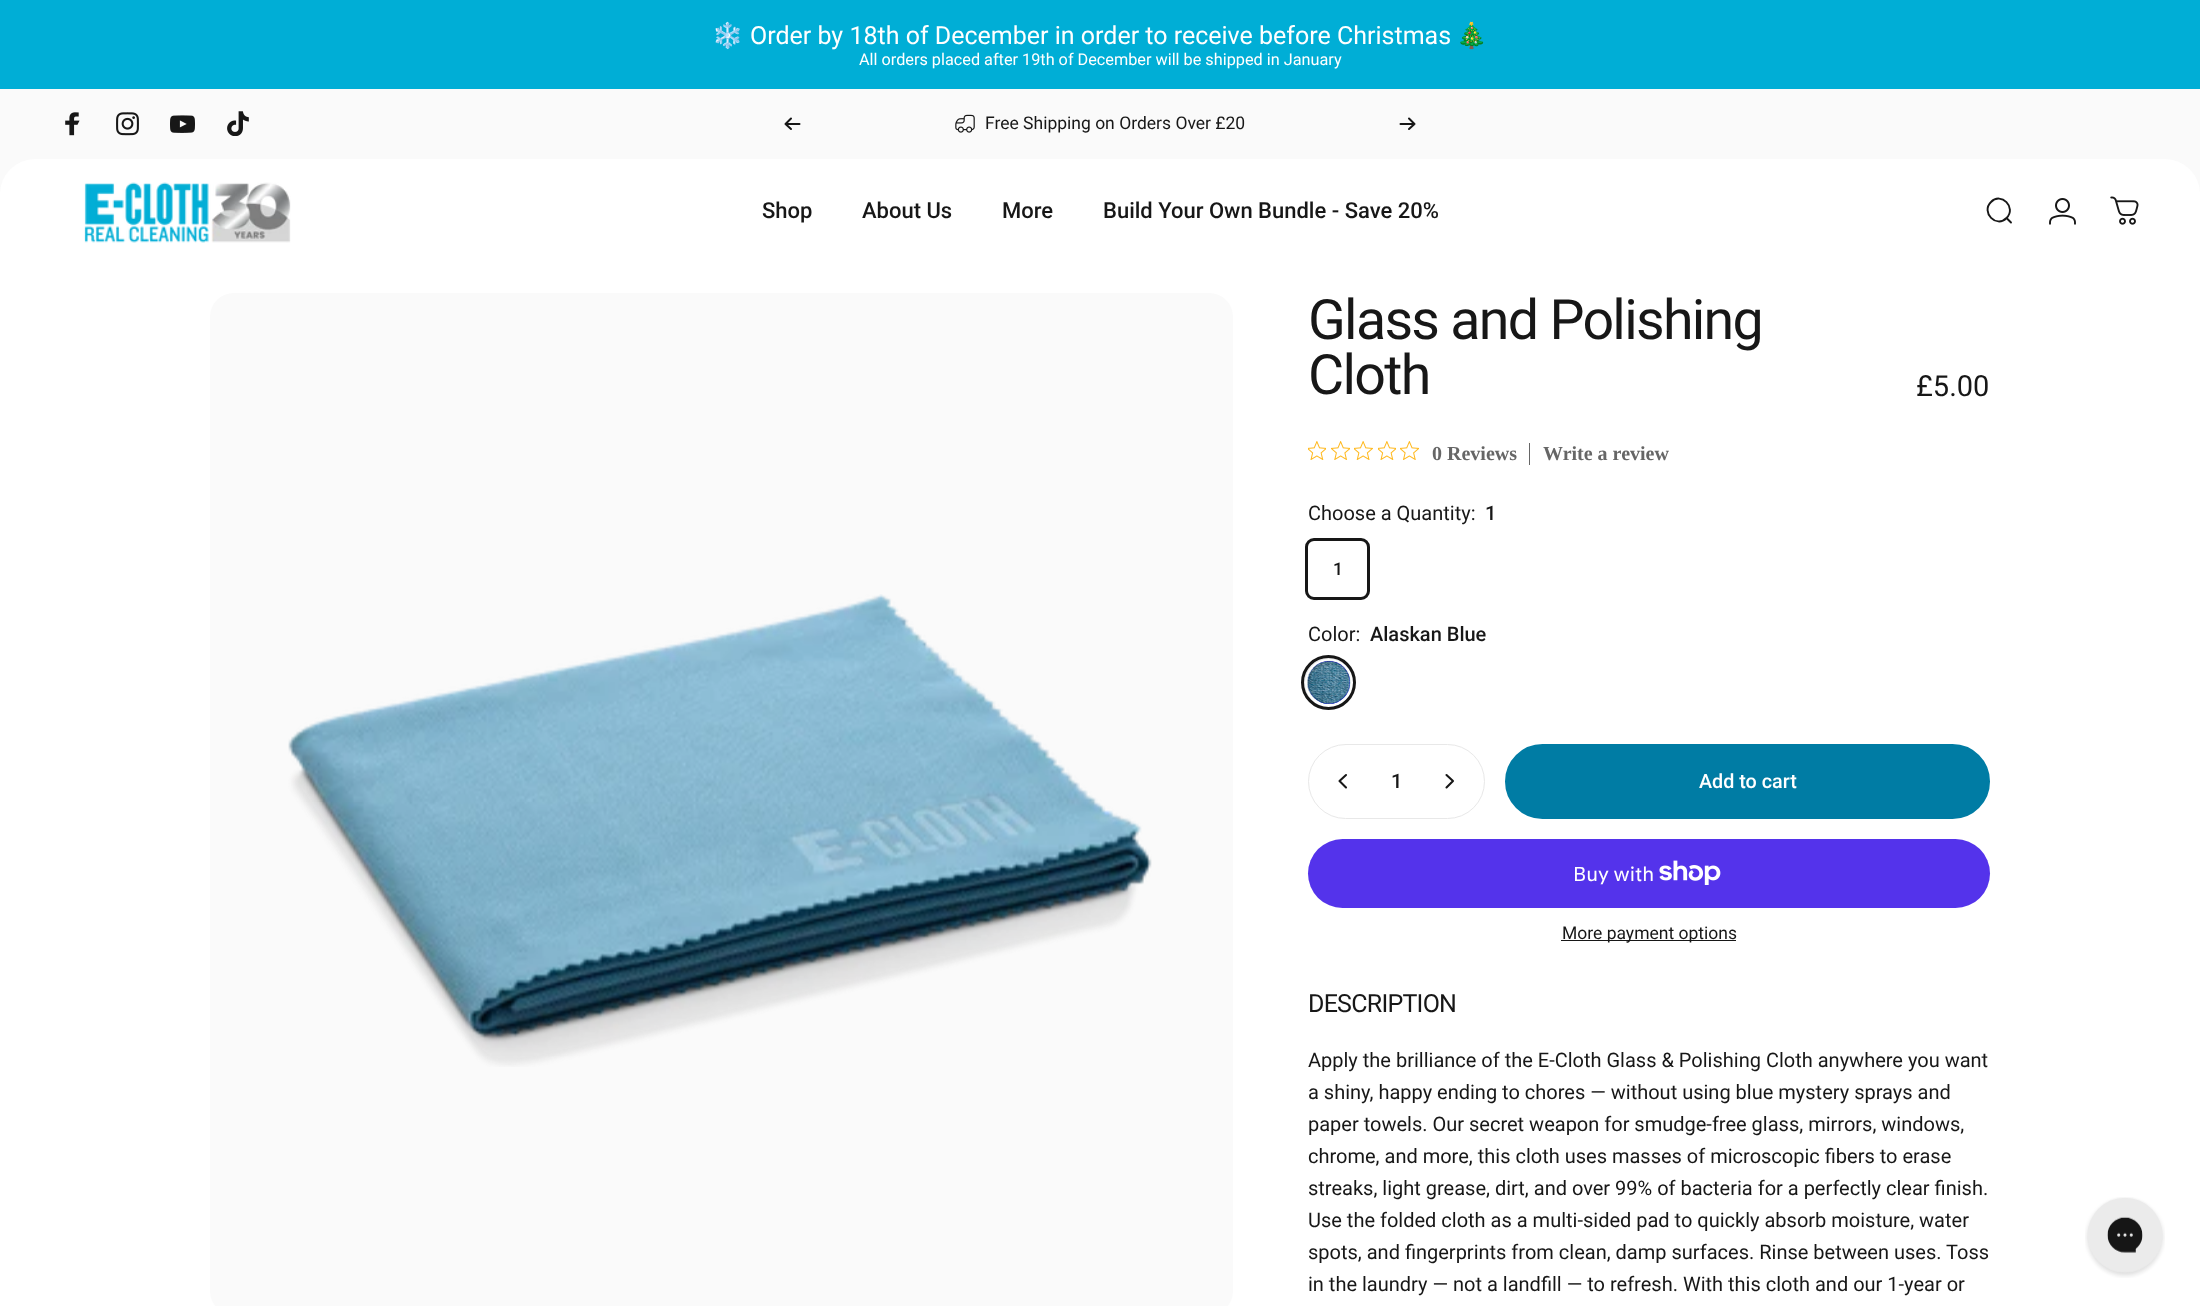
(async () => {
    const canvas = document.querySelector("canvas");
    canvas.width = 2200;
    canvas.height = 1306;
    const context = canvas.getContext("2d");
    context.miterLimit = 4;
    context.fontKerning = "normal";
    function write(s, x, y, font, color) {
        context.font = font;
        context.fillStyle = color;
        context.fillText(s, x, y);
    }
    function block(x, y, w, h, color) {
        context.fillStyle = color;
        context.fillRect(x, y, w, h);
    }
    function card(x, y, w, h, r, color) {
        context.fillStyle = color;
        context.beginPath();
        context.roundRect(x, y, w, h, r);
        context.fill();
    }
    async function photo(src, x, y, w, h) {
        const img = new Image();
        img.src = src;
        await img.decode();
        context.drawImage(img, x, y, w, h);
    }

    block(0, 0, 2200, 1306, "rgb(255, 255, 255)");
    block(0, 0, 2200, 89, "rgb(0, 174, 214)");
    write("❄️", 712, 44, "25px Noto Color Emoji", "rgb(255, 255, 255)");
    write("Order by 18th of December in order to receive before Christmas", 750, 44, "25px Roboto", "rgb(255, 255, 255)");
    write("🎄", 1456, 44, "25px Noto Color Emoji", "rgb(255, 255, 255)");
    write("All orders placed after 19th of December will be shipped in January", 859, 65, "16.25px Roboto", "rgb(255, 255, 255)");
    block(0, 89, 2200, 105, "rgb(250, 250, 250)");
    await photo("media/1.png", 65, 112, 15, 24);
    await photo("media/2.png", 116, 112, 23, 24);
    await photo("media/3.png", 170, 115, 25, 18);
    await photo("media/4.png", 227, 111, 22, 25);
    context.beginPath();
    context.moveTo(791, 118.5);
    context.lineTo(785.5, 124);
    context.moveTo(785.5, 124);
    context.lineTo(791, 129);
    context.moveTo(785.5, 124);
    context.lineTo(799.5, 124);
    context.strokeStyle = "rgb(23, 23, 23)";
    context.lineWidth = 2;
    context.lineCap = "round";
    context.lineJoin = "round";
    context.stroke();
    await photo("media/5.png", 955, 114, 20, 19);
    write("Free Shipping on Orders Over £20", 985, 129, "17.5px Roboto", "rgb(23, 23, 23)");
    context.beginPath();
    context.moveTo(1400.5, 124);
    context.lineTo(1414.5, 124);
    context.moveTo(1414.5, 124);
    context.lineTo(1409, 118.5);
    context.moveTo(1414.5, 124);
    context.lineTo(1409, 129);
    context.stroke();
    context.fillStyle = "rgb(255, 255, 255)";
    context.beginPath();
    context.roundRect(0, 159, 2200, 109, [35, 35, 0, 0]);
    context.fill();
    await photo("media/6.png", 84, 182, 207, 61);
    write("Shop", 762, 218, "500 22px Roboto", "rgb(23, 23, 23)");
    write("About Us", 862, 218, "500 22px Roboto", "rgb(23, 23, 23)");
    write("More", 1002, 218, "500 22px Roboto", "rgb(23, 23, 23)");
    write("Build Your Own Bundle - Save 20%", 1103, 218, "500 22px Roboto", "rgb(23, 23, 23)");
    context.beginPath();
    context.moveTo(2011, 222.5);
    context.lineTo(2006.5, 218);
    context.moveTo(2006.5, 218);
    context.bezierCurveTo(2017, 207.5, 2001, 191.5, 1991, 202);
    context.bezierCurveTo(1980.5, 212.5, 1996.5, 228.5, 2006.5, 218);
    context.closePath();
    context.lineWidth = 1.9;
    context.lineJoin = "miter";
    context.stroke();
    await photo("media/7.png", 2049, 198, 27, 27);
    await photo("media/8.png", 2110, 196, 29, 29);
    card(210, 293, 1023, 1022, 24, "rgb(250, 250, 250)");
    await photo("media/9.png", 288, 594, 864, 473);
    context.letterSpacing = "-1.7px";
    write("Glass and Polishing", 1308, 339, "55.5px Roboto", "rgb(23, 23, 23)");
    write("Cloth", 1308, 394, "55.5px Roboto", "rgb(23, 23, 23)");
    context.letterSpacing = "0px";
    write("£5.00", 1916, 396, "29px Roboto", "rgb(23, 23, 23)");
    await photo("media/10.png", 1308, 441, 18, 19);
    await photo("media/11.png", 1331, 441, 19, 19);
    await photo("media/12.png", 1354, 441, 19, 19);
    await photo("media/10.png", 1378, 441, 18, 19);
    await photo("media/13.png", 1400, 441, 19, 19);
    write("0 Reviews", 1432, 460, "bold 20px Liberation Serif", "rgb(102, 102, 102)");
    block(1529, 443, 1, 22, "rgb(102, 102, 102)");
    write("Write a review", 1543, 460, "bold 20px Liberation Serif", "rgb(102, 102, 102)");
    write("Choose a Quantity:", 1308, 520, "20px Roboto", "rgb(23, 23, 23)");
    write("1", 1485, 520, "500 20px Roboto", "rgb(23, 23, 23)");
    context.beginPath();
    context.roundRect(1306.5, 539.5, 62, 59, 7.5);
    context.lineWidth = 3;
    context.stroke();
    write("1", 1333, 575, "500 17.5px Roboto", "rgb(23, 23, 23)");
    write("Color:", 1308, 641, "20px Roboto", "rgb(23, 23, 23)");
    write("Alaskan Blue", 1370, 641, "500 20px Roboto", "rgb(23, 23, 23)");
    card(1308, 661, 42, 43, 21, "rgb(0, 0, 255)");
    await photo("media/14.png", 1307, 661, 44, 43);
    context.fillStyle = "rgba(23, 23, 23, 0.11)";
    context.beginPath();
    context.moveTo(1330, 665);
    context.bezierCurveTo(1341, 665, 1347, 671, 1350, 679);
    context.bezierCurveTo(1349, 674, 1346, 669, 1343, 666);
    context.bezierCurveTo(1326, 651, 1302, 670, 1309, 690);
    context.bezierCurveTo(1307, 678, 1314, 665, 1330, 665);
    context.closePath();
    context.fill();
    context.beginPath();
    context.roundRect(1308.5, 661.5, 41, 42, 20.5);
    context.strokeStyle = "rgba(23, 23, 23, 0.11)";
    context.lineWidth = 1;
    context.stroke();
    context.beginPath();
    context.arc(1328.5, 682.5, 26, 0, Math.PI * 2);
    context.strokeStyle = "rgb(23, 23, 23)";
    context.lineWidth = 3;
    context.stroke();
    context.beginPath();
    context.arc(1329, 683, 24.5, 0, Math.PI * 2);
    context.strokeStyle = "rgba(23, 23, 23, 0.11)";
    context.lineWidth = 1;
    context.stroke();
    context.beginPath();
    context.roundRect(1308.5, 744.5, 176, 74, 37);
    context.strokeStyle = "rgb(232, 232, 232)";
    context.stroke();
    context.beginPath();
    context.moveTo(1346, 775);
    context.lineTo(1339.5, 781);
    context.lineTo(1346, 787.5);
    context.strokeStyle = "rgb(23, 23, 23)";
    context.lineWidth = 2.1;
    context.lineJoin = "round";
    context.stroke();
    write("1", 1391, 788, "500 20px Roboto", "rgb(23, 23, 23)");
    context.beginPath();
    context.moveTo(1446.5, 775);
    context.lineTo(1453, 781);
    context.lineTo(1446.5, 787.5);
    context.stroke();
    context.fillStyle = "rgb(0, 124, 164)";
    context.beginPath();
    context.roundRect(1506.5, 745.5, 482, 72, 36);
    context.fill();
    context.strokeStyle = "rgb(0, 124, 164)";
    context.lineWidth = 3;
    context.lineJoin = "miter";
    context.stroke();
    write("Add to cart", 1699, 788, "500 19.75px Roboto", "rgb(255, 255, 255)");
    card(1308, 839, 682, 69, 34.5, "rgb(84, 51, 235)");
    write("Buy with", 1573, 881, "20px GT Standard", "rgb(255, 255, 255)");
    await photo("media/15.png", 1659, 860, 62, 25);
    block(1561, 940, 175, 1, "rgb(23, 23, 23)");
    write("More payment options", 1562, 939, "17.5px Roboto", "rgb(23, 23, 23)");
    context.letterSpacing = "-0.75px";
    write("DESCRIPTION", 1308, 1012, "25px Roboto", "rgb(23, 23, 23)");
    context.letterSpacing = "0px";
    write("Apply the brilliance of the E-Cloth Glass & Polishing Cloth anywhere you want", 1308, 1067, "20px Roboto", "rgb(23, 23, 23)");
    write("a shiny, happy ending to chores — without using blue mystery sprays and", 1308, 1099, "20px Roboto", "rgb(23, 23, 23)");
    write("paper towels. Our secret weapon for smudge-free glass, mirrors, windows,", 1308, 1131, "20px Roboto", "rgb(23, 23, 23)");
    write("chrome, and more, this cloth uses masses of microscopic fibers to erase", 1308, 1163, "20px Roboto", "rgb(23, 23, 23)");
    write("streaks, light grease, dirt, and over 99% of bacteria for a perfectly clear finish.", 1308, 1195, "20px Roboto", "rgb(23, 23, 23)");
    write("Use the folded cloth as a multi-sided pad to quickly absorb moisture, water", 1308, 1227, "20px Roboto", "rgb(23, 23, 23)");
    write("spots, and fingerprints from clean, damp surfaces. Rinse between uses. Toss", 1308, 1259, "20px Roboto", "rgb(23, 23, 23)");
    write("in the laundry — not a landfill — to refresh. With this cloth and our 1-year or", 1308, 1291, "20px Roboto", "rgb(23, 23, 23)");
    await photo("media/16.png", 2085, 1197, 80, 81);
})();
